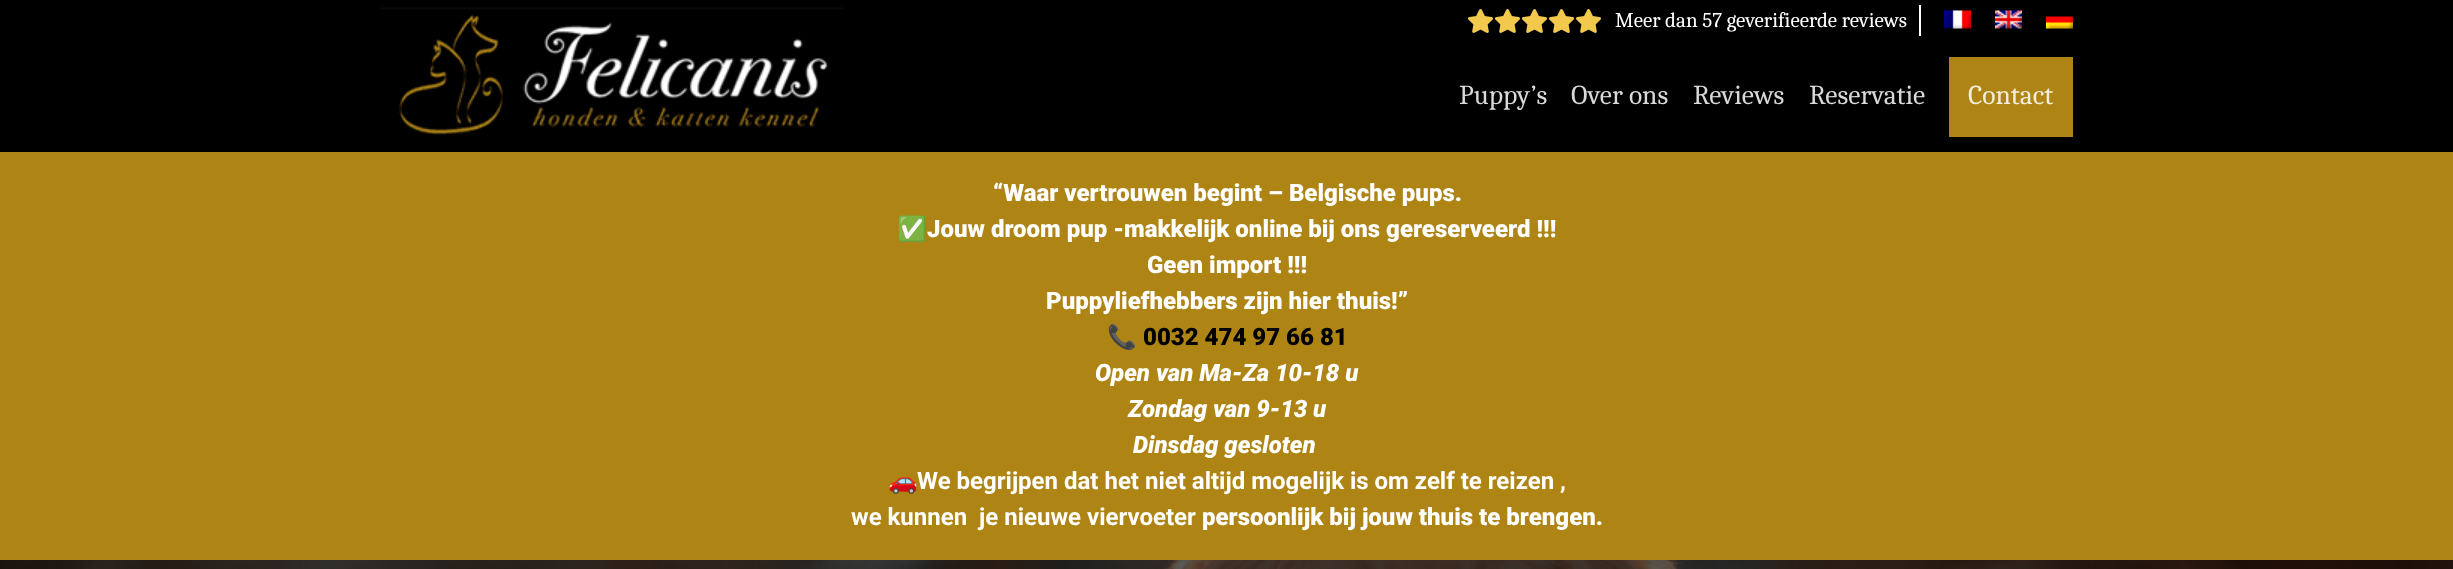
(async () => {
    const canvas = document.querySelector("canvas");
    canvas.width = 2453;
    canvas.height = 569;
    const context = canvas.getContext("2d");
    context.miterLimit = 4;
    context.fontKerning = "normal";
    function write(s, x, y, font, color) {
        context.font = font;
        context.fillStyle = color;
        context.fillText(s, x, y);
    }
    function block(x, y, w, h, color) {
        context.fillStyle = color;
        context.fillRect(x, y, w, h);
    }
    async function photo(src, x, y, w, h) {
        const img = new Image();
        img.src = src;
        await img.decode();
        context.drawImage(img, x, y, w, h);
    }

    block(0, 0, 2453, 569, "rgb(255, 255, 255)");
    block(0, 0, 2453, 152, "rgb(0, 0, 0)");
    await photo("media/1.png", 381, 7, 462, 128);
    await photo("media/2.png", 1468, 9, 25, 24);
    await photo("media/2.png", 1495, 9, 25, 24);
    await photo("media/2.png", 1522, 9, 25, 24);
    await photo("media/2.png", 1549, 9, 25, 24);
    await photo("media/2.png", 1576, 9, 25, 24);
    block(1919, 5, 2, 31, "rgb(255, 255, 255)");
    write("Meer dan 57 geverifieerde reviews", 1615, 27, "21px Caladea", "rgb(255, 255, 255)");
    await photo("media/3.png", 1944, 10, 27, 19);
    await photo("media/4.png", 1995, 10, 27, 19);
    await photo("media/5.png", 2046, 16, 27, 13);
    write("Puppy’s", 1459, 104, "27.5px Caladea", "rgb(217, 217, 217)");
    write("Over ons", 1571, 104, "27.5px Caladea", "rgb(217, 217, 217)");
    write("Reviews", 1693, 104, "27.5px Caladea", "rgb(217, 217, 217)");
    write("Reservatie", 1809, 104, "27.5px Caladea", "rgb(217, 217, 217)");
    block(1949, 57, 124, 80, "rgb(174, 133, 21)");
    write("Contact", 1968, 104, "27.5px Caladea", "rgb(243, 237, 220)");
    block(0, 152, 2453, 408, "rgb(174, 133, 21)");
    write("“Waar vertrouwen begint – Belgische pups.", 993, 201, "900 24px Roboto", "rgb(255, 255, 255)");
    write("✅", 897, 237, "bold 24px Noto Color Emoji", "rgb(255, 255, 255)");
    write("Jouw droom pup -makkelijk online bij ons gereserveerd !!!", 927, 237, "900 24px Roboto", "rgb(255, 255, 255)");
    write("Geen import !!!", 1147, 273, "900 24px Roboto", "rgb(255, 255, 255)");
    write("Puppyliefhebbers zijn hier thuis!”", 1046, 309, "900 24px Roboto", "rgb(255, 255, 255)");
    write("📞", 1107, 345, "bold 24px Noto Color Emoji", "rgb(255, 255, 255)");
    write("0032 474 97 66 81", 1143, 345, "900 24px Roboto", "rgb(0, 0, 0)");
    write("Open van Ma-Za 10-18 u", 1095, 381, "italic 900 24px Roboto", "rgb(255, 255, 255)");
    write("Zondag van 9-13 u", 1128, 417, "italic 900 24px Roboto", "rgb(255, 255, 255)");
    write("Dinsdag gesloten", 1133, 453, "italic 900 24px Roboto", "rgb(255, 255, 255)");
    write("🚗", 888, 489, "bold 24px Noto Color Emoji", "rgb(255, 255, 255)");
    write("We begrijpen dat het niet altijd mogelijk is om zelf te reizen ,", 917, 489, "bold 24px Roboto", "rgb(255, 255, 255)");
    write("we kunnen  je nieuwe viervoeter", 851, 525, "bold 24px Roboto", "rgb(255, 255, 255)");
    write("persoonlijk bij jouw thuis te brengen.", 1202, 525, "900 24px Roboto", "rgb(255, 255, 255)");
    await photo("media/6.png", 0, 560, 2453, 9);
})();
